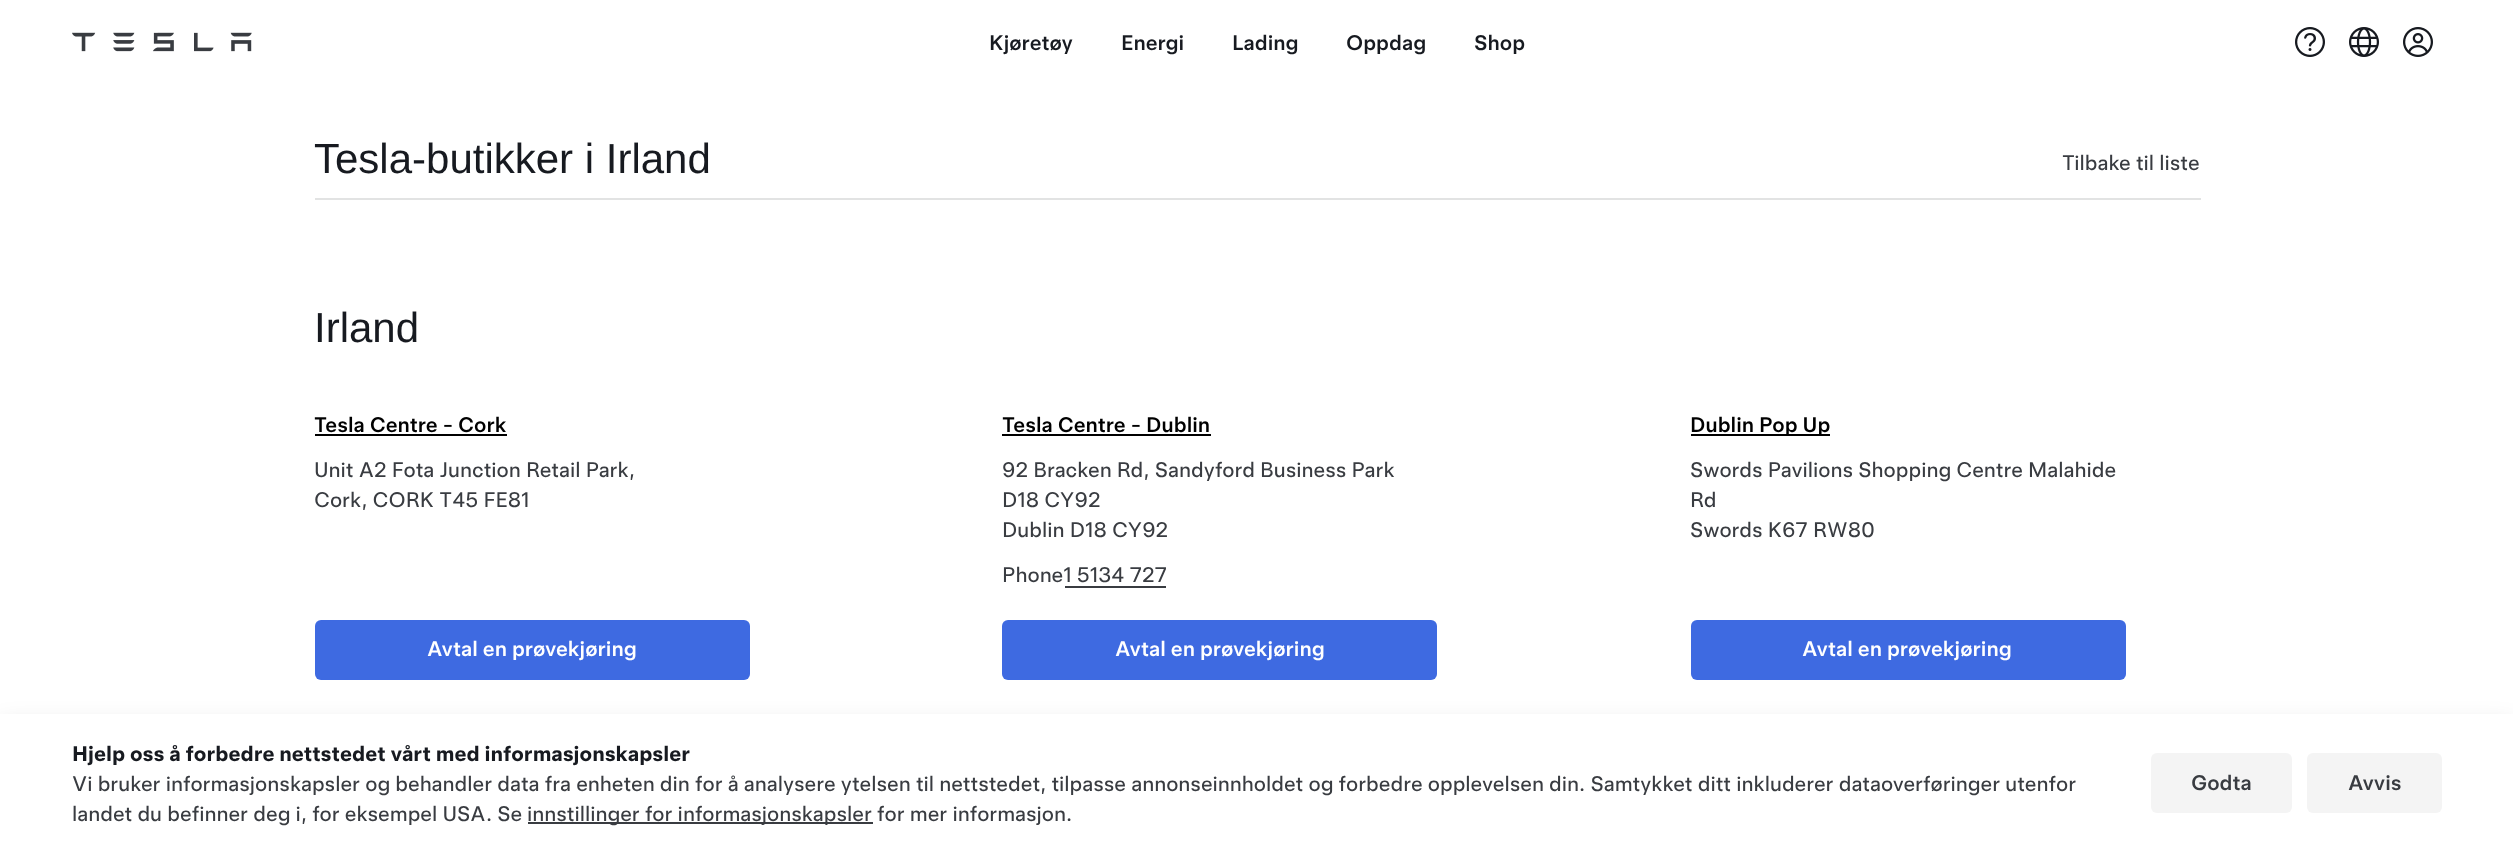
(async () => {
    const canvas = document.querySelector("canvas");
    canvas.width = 2513;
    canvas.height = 851;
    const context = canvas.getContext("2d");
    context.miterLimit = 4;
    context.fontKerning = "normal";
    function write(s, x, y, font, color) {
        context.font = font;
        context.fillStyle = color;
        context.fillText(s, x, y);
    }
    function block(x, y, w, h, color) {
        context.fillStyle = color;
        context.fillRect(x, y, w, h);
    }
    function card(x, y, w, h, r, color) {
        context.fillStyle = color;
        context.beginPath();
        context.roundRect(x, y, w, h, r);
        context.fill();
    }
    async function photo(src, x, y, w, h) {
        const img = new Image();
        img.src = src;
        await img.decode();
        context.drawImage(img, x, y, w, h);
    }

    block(0, 0, 2513, 851, "rgb(255, 255, 255)");
    await photo("media/1.png", 72, 32, 180, 20);
    write("Kjøretøy", 989, 50, "500 21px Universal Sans", "rgb(23, 26, 32)");
    write("Energi", 1121, 50, "500 21px Universal Sans", "rgb(23, 26, 32)");
    write("Lading", 1232, 50, "500 21px Universal Sans", "rgb(23, 26, 32)");
    write("Oppdag", 1346, 50, "500 21px Universal Sans", "rgb(23, 26, 32)");
    write("Shop", 1474, 50, "500 21px Universal Sans", "rgb(23, 26, 32)");
    await photo("media/2.png", 2295, 27, 30, 30);
    await photo("media/3.png", 2349, 27, 30, 30);
    await photo("media/4.png", 2403, 27, 30, 30);
    block(315, 198, 1886, 2, "rgb(226, 227, 227)");
    write("Tesla-butikker i Irland", 314, 173, "42px Liberation Sans", "rgb(23, 26, 32)");
    write("Tilbake til liste", 2062, 170, "21px Universal Sans", "rgb(57, 60, 65)");
    write("Irland", 314, 342, "42px Liberation Sans", "rgb(23, 26, 32)");
    write("Tesla Centre - Cork", 314, 432, "500 21px Universal Sans", "rgb(0, 0, 0)");
    block(315, 434, 192, 2, "rgb(0, 0, 0)");
    write("Unit A2 Fota Junction Retail Park,", 314, 477, "21px Universal Sans", "rgb(57, 60, 65)");
    write("Cork, CORK T45 FE81", 314, 507, "21px Universal Sans", "rgb(57, 60, 65)");
    card(315, 620, 435, 60, 6, "rgb(62, 106, 225)");
    write("Avtal en prøvekjøring", 427, 656, "500 21px Universal Sans", "rgb(255, 255, 255)");
    write("Tesla Centre - Dublin", 1002, 432, "500 21px Universal Sans", "rgb(0, 0, 0)");
    block(1002, 434, 209, 2, "rgb(0, 0, 0)");
    write("92 Bracken Rd, Sandyford Business Park", 1002, 477, "21px Universal Sans", "rgb(57, 60, 65)");
    write("D18 CY92", 1002, 507, "21px Universal Sans", "rgb(57, 60, 65)");
    write("Dublin D18 CY92", 1002, 537, "21px Universal Sans", "rgb(57, 60, 65)");
    write("Phone1 5134 727", 1002, 582, "21px Universal Sans", "rgb(57, 60, 65)");
    block(1065, 586, 101, 2, "rgb(57, 60, 65)");
    card(1002, 620, 435, 60, 6, "rgb(62, 106, 225)");
    write("Avtal en prøvekjøring", 1115, 656, "500 21px Universal Sans", "rgb(255, 255, 255)");
    block(1691, 434, 139, 2, "rgb(0, 0, 0)");
    write("Dublin Pop Up", 1690, 432, "500 21px Universal Sans", "rgb(0, 0, 0)");
    write("Swords Pavilions Shopping Centre Malahide", 1690, 477, "21px Universal Sans", "rgb(57, 60, 65)");
    write("Rd", 1690, 507, "21px Universal Sans", "rgb(57, 60, 65)");
    write("Swords K67 RW80", 1690, 537, "21px Universal Sans", "rgb(57, 60, 65)");
    card(1691, 620, 435, 60, 6, "rgb(62, 106, 225)");
    write("Avtal en prøvekjøring", 1802, 656, "500 21px Universal Sans", "rgb(255, 255, 255)");
    context.fillStyle = "rgba(0, 0, 0, 0.16)";
    context.filter = "blur(12px)";
    context.beginPath();
    context.rect(0, 726, 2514, 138);
    context.fill();
    context.filter = "none";
    block(0, 714, 2513, 137, "rgb(255, 255, 255)");
    write("Hjelp oss å forbedre nettstedet vårt med informasjonskapsler", 72, 761, "bold 21px Universal Sans", "rgb(23, 26, 32)");
    write("Vi bruker informasjonskapsler og behandler data fra enheten din for å analysere ytelsen til nettstedet, tilpasse annonseinnholdet og forbedre opplevelsen din. Samtykket ditt inkluderer dataoverføringer utenfor", 72, 791, "21px Universal Sans", "rgb(57, 60, 65)");
    write("landet du befinner deg i, for eksempel USA. Se", 72, 821, "21px Universal Sans", "rgb(57, 60, 65)");
    block(528, 822, 345, 2, "rgb(57, 60, 65)");
    write("innstillinger for informasjonskapsler for mer informasjon.", 527, 821, "21px Universal Sans", "rgb(57, 60, 65)");
    card(2151, 753, 141, 60, 6, "rgb(244, 244, 244)");
    write("Godta", 2191, 790, "500 21px Universal Sans", "rgb(57, 60, 65)");
    card(2307, 753, 135, 60, 6, "rgb(244, 244, 244)");
    write("Avvis", 2348, 790, "500 21px Universal Sans", "rgb(57, 60, 65)");
})();
